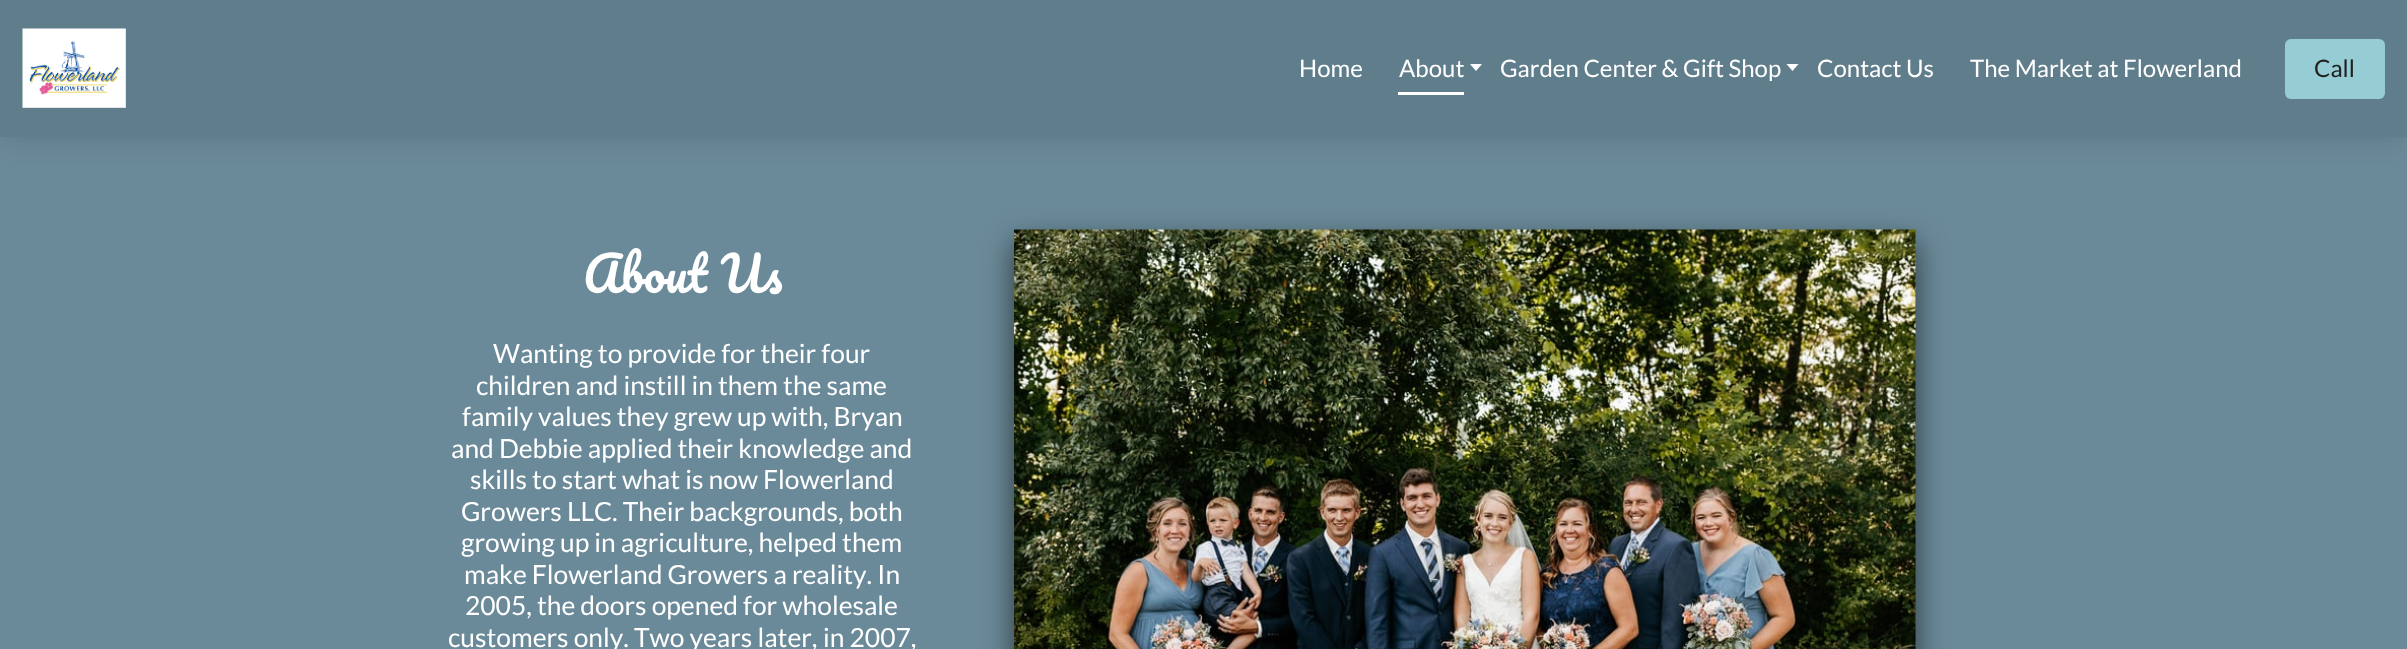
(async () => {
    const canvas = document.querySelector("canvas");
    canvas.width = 2407;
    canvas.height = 649;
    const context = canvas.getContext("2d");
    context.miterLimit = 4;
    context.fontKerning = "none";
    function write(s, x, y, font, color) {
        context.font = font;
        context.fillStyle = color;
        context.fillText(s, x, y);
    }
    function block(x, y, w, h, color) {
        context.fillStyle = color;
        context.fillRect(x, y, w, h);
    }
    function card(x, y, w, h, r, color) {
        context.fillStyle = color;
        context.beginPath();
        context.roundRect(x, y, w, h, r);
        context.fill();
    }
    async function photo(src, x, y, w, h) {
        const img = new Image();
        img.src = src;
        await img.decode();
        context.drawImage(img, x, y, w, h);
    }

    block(0, 0, 2407, 649, "rgb(107, 138, 153)");
    context.fillStyle = "rgba(0, 0, 0, 0.12)";
    context.filter = "blur(12px)";
    context.beginPath();
    context.rect(0, 3, 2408, 137);
    context.fill();
    context.filter = "none";
    block(0, 0, 2407, 137, "rgb(96, 125, 139)");
    await photo("media/1.png", 22, 28, 104, 80);
    write("Home", 1299, 77, "24px Lato", "rgb(255, 255, 255)");
    write("About", 1399, 77, "24px Lato", "rgb(255, 255, 255)");
    context.beginPath();
    context.moveTo(1470, 64);
    context.lineTo(1482, 64);
    context.lineTo(1476, 71);
    context.closePath();
    context.fill();
    block(1398, 92, 66, 3, "rgb(255, 255, 255)");
    write("Garden Center & Gift Shop", 1500, 77, "24px Lato", "rgb(255, 255, 255)");
    context.beginPath();
    context.moveTo(1786.5, 64);
    context.lineTo(1798.5, 64);
    context.lineTo(1792.5, 71);
    context.closePath();
    context.fill();
    write("Contact Us", 1817, 77, "24px Lato", "rgb(255, 255, 255)");
    write("The Market at Flowerland", 1970, 77, "24px Lato", "rgb(255, 255, 255)");
    card(2285, 39, 100, 60, 6, "rgb(150, 205, 212)");
    write("Call", 2314, 77, "24px Lato", "rgb(33, 33, 33)");
    context.wordSpacing = "1px";
    write("About Us", 583, 293, "48px Pacifico", "rgb(255, 255, 255)");
    context.wordSpacing = "0px";
    write("Wanting to provide for their four", 493, 363, "26.4px Lato", "rgb(255, 255, 255)");
    write("children and instill in them the same", 476, 395, "26.4px Lato", "rgb(255, 255, 255)");
    write("family values they grew up with, Bryan", 462, 426, "26.4px Lato", "rgb(255, 255, 255)");
    write("and Debbie applied their knowledge and", 451, 458, "26.4px Lato", "rgb(255, 255, 255)");
    write("skills to start what is now Flowerland", 470, 489, "26.4px Lato", "rgb(255, 255, 255)");
    write("Growers LLC. Their backgrounds, both", 461, 521, "26.4px Lato", "rgb(255, 255, 255)");
    write("growing up in agriculture, helped them", 461, 552, "26.4px Lato", "rgb(255, 255, 255)");
    write("make Flowerland Growers a reality. In", 464, 584, "26.4px Lato", "rgb(255, 255, 255)");
    write("2005, the doors opened for wholesale", 465, 615, "26.4px Lato", "rgb(255, 255, 255)");
    write("customers only. Two years later,", 448, 647, "26.4px Lato", "rgb(255, 255, 255)");
    write("in 2007,", 823, 647, "26.4px Lato", "rgb(255, 255, 255)");
    context.fillStyle = "rgba(0, 0, 0, 0.6)";
    context.filter = "blur(15px)";
    context.beginPath();
    context.rect(1014, 242, 902, 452);
    context.fill();
    context.filter = "none";
    await photo("media/2.png", 1014, 229, 902, 420);
})();
